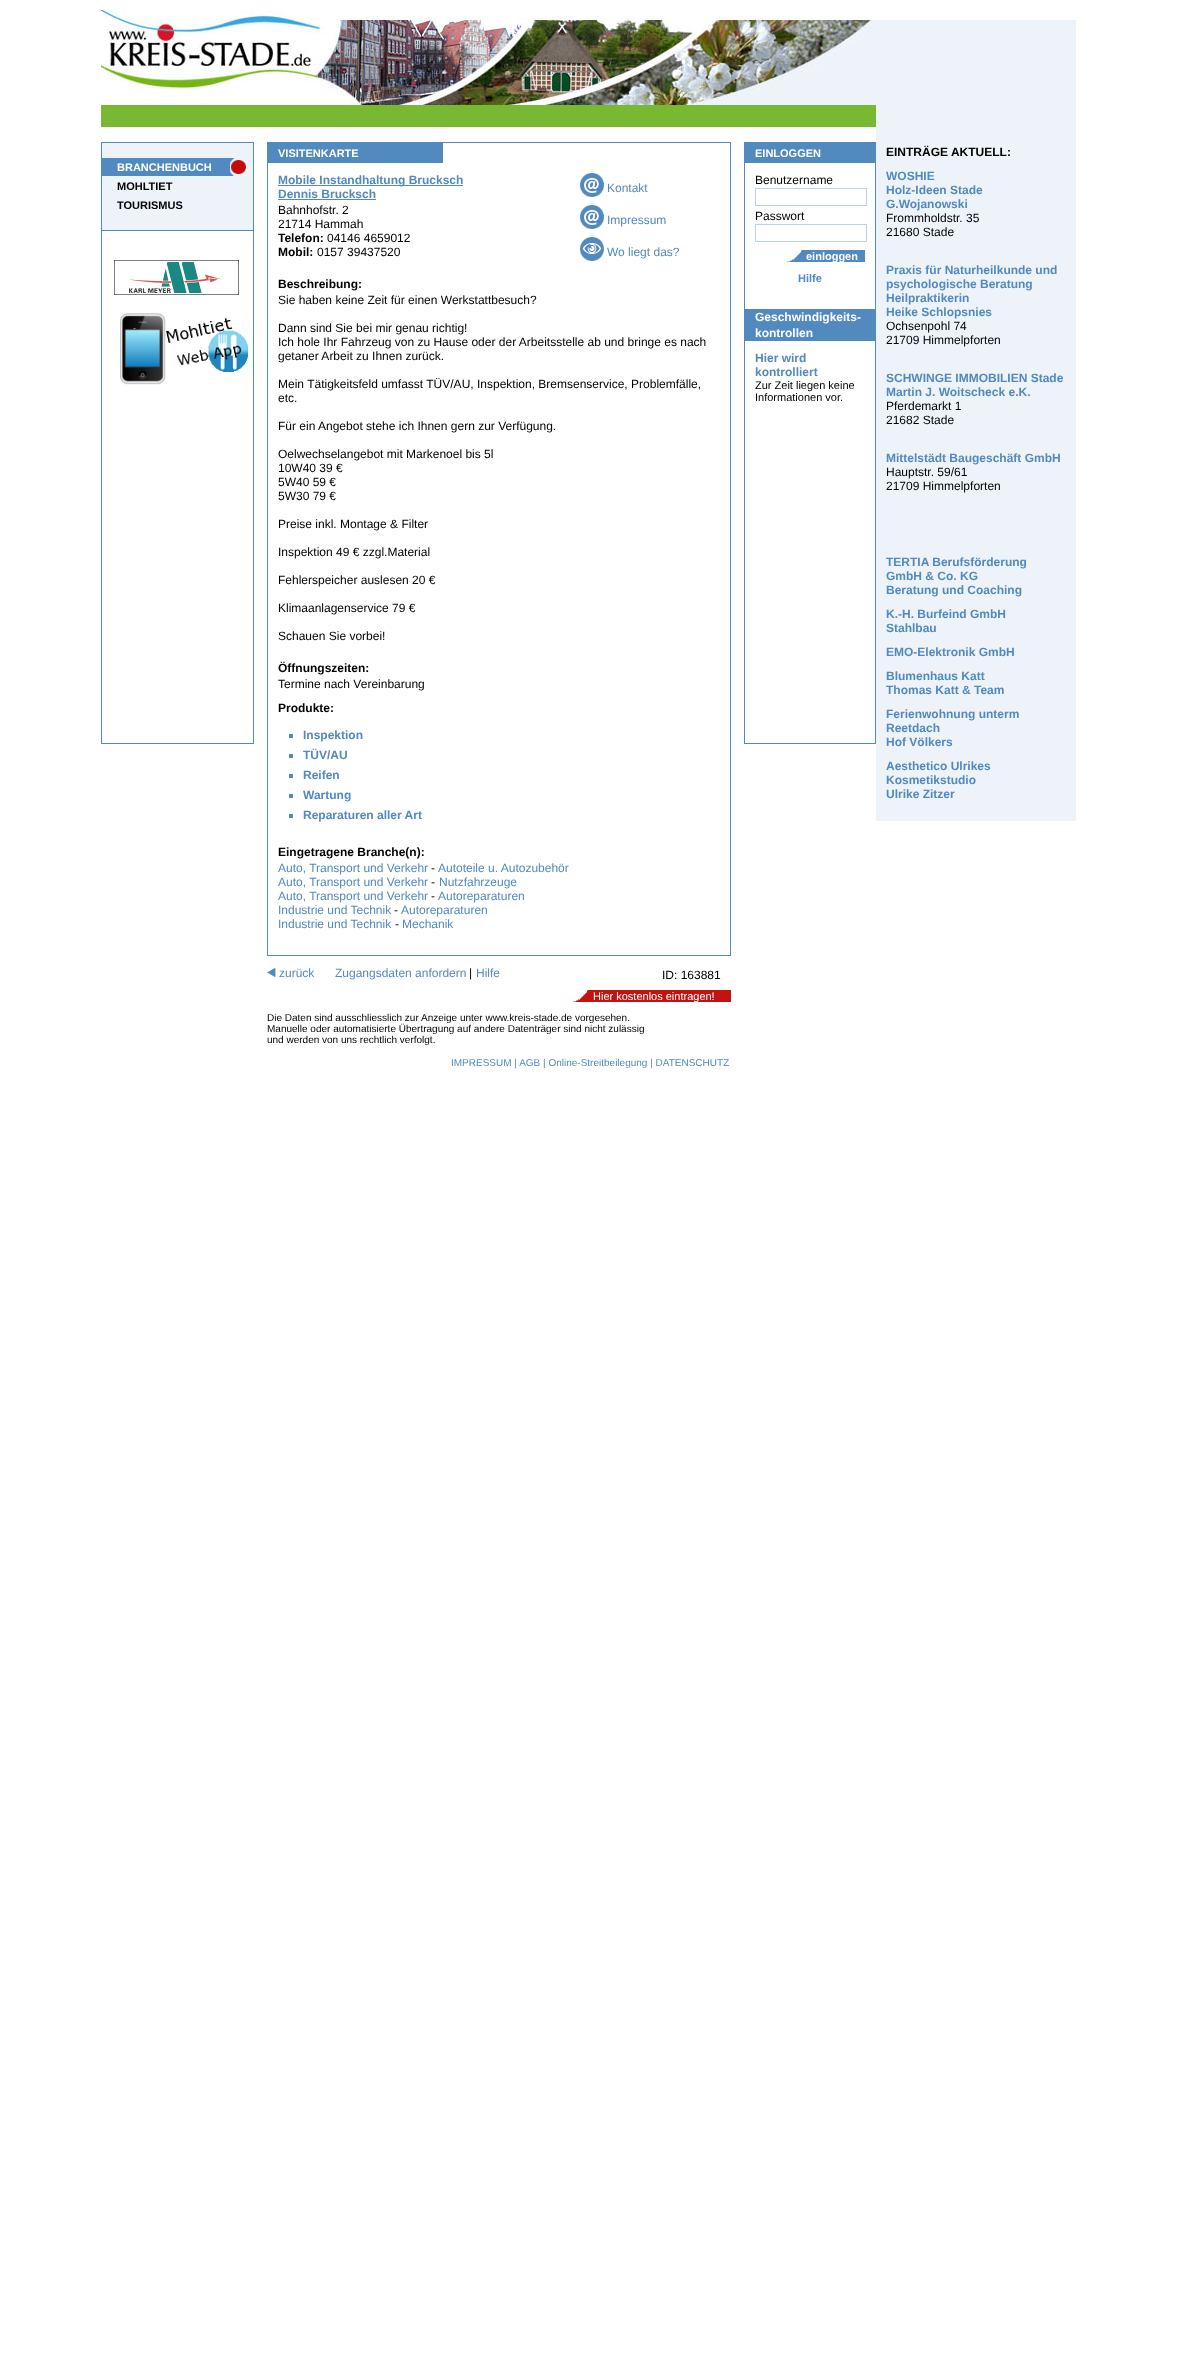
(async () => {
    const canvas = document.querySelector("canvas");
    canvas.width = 1177;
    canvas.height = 2364;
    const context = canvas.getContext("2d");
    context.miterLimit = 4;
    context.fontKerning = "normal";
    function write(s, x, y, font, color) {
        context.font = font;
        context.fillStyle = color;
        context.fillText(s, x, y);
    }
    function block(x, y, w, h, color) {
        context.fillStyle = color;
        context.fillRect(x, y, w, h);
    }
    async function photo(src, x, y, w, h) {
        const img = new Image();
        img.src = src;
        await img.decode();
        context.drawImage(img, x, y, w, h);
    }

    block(0, 0, 1177, 2364, "rgb(255, 255, 255)");
    await photo("media/1.png", 101, 10, 770, 95);
    block(871, 20, 5, 85, "rgb(237, 243, 249)");
    block(101, 105, 775, 22, "rgb(120, 184, 51)");
    context.strokeStyle = "rgb(82, 137, 191)";
    context.strokeRect(101.5, 142.5, 152, 601);
    block(102, 143, 151, 87, "rgb(237, 243, 249)");
    block(102, 230, 151, 1, "rgb(82, 137, 191)");
    await photo("media/2.png", 102, 158, 144, 18);
    write("BRANCHENBUCH", 117, 171, "bold 11px Liberation Sans", "rgb(255, 255, 255)");
    write("MOHLTIET", 117, 190, "bold 11px Liberation Sans", "rgb(0, 0, 0)");
    write("TOURISMUS", 117, 209, "bold 11px Liberation Sans", "rgb(0, 0, 0)");
    await photo("media/3.png", 114, 260, 125, 35);
    await photo("media/4.png", 120, 313, 129, 72);
    context.strokeRect(267.5, 142.5, 463, 813);
    block(268, 143, 175, 20, "rgb(82, 137, 191)");
    write("VISITENKARTE", 278, 157, "bold 11px Liberation Sans", "rgb(255, 255, 255)");
    block(278, 185, 185, 1, "rgb(82, 137, 191)");
    write("Mobile Instandhaltung Brucksch", 278, 184, "bold 12px Liberation Sans", "rgb(82, 137, 191)");
    write("Dennis Brucksch", 278, 198, "bold 12px Liberation Sans", "rgb(82, 137, 191)");
    block(278, 199, 98, 1, "rgb(82, 137, 191)");
    write("Bahnhofstr. 2", 278, 214, "12px Liberation Sans", "rgb(0, 0, 0)");
    write("21714 Hammah", 278, 228, "12px Liberation Sans", "rgb(0, 0, 0)");
    write("Telefon:", 278, 242, "bold 12px Liberation Sans", "rgb(0, 0, 0)");
    write("04146 4659012", 327, 242, "12px Liberation Sans", "rgb(0, 0, 0)");
    write("Mobil:", 278, 256, "bold 12px Liberation Sans", "rgb(0, 0, 0)");
    write("0157 39437520", 317, 256, "12px Liberation Sans", "rgb(0, 0, 0)");
    await photo("media/5.png", 580, 173, 24, 24);
    write("Kontakt", 607, 192, "12px Liberation Sans", "rgb(82, 137, 191)");
    await photo("media/5.png", 580, 205, 24, 24);
    write("Impressum", 607, 224, "12px Liberation Sans", "rgb(82, 137, 191)");
    await photo("media/6.png", 580, 237, 24, 24);
    write("Wo liegt das?", 607, 256, "12px Liberation Sans", "rgb(82, 137, 191)");
    write("Beschreibung:", 278, 288, "bold 12px Liberation Sans", "rgb(0, 0, 0)");
    write("Sie haben keine Zeit für einen Werkstattbesuch?", 278, 304, "12px Liberation Sans", "rgb(0, 0, 0)");
    write("Dann sind Sie bei mir genau richtig!", 278, 332, "12px Liberation Sans", "rgb(0, 0, 0)");
    write("Ich hole Ihr Fahrzeug von zu Hause oder der Arbeitsstelle ab und bringe es nach", 278, 346, "12px Liberation Sans", "rgb(0, 0, 0)");
    write("getaner Arbeit zu Ihnen zurück.", 278, 360, "12px Liberation Sans", "rgb(0, 0, 0)");
    write("Mein Tätigkeitsfeld umfasst TÜV/AU, Inspektion, Bremsenservice, Problemfälle,", 278, 388, "12px Liberation Sans", "rgb(0, 0, 0)");
    write("etc.", 278, 402, "12px Liberation Sans", "rgb(0, 0, 0)");
    write("Für ein Angebot stehe ich Ihnen gern zur Verfügung.", 278, 430, "12px Liberation Sans", "rgb(0, 0, 0)");
    write("Oelwechselangebot mit Markenoel bis 5l", 278, 458, "12px Liberation Sans", "rgb(0, 0, 0)");
    write("10W40 39 €", 278, 472, "12px Liberation Sans", "rgb(0, 0, 0)");
    write("5W40 59 €", 278, 486, "12px Liberation Sans", "rgb(0, 0, 0)");
    write("5W30 79 €", 278, 500, "12px Liberation Sans", "rgb(0, 0, 0)");
    write("Preise inkl. Montage & Filter", 278, 528, "12px Liberation Sans", "rgb(0, 0, 0)");
    write("Inspektion 49 € zzgl.Material", 278, 556, "12px Liberation Sans", "rgb(0, 0, 0)");
    write("Fehlerspeicher auslesen 20 €", 278, 584, "12px Liberation Sans", "rgb(0, 0, 0)");
    write("Klimaanlagenservice 79 €", 278, 612, "12px Liberation Sans", "rgb(0, 0, 0)");
    write("Schauen Sie vorbei!", 278, 640, "12px Liberation Sans", "rgb(0, 0, 0)");
    write("Öffnungszeiten:", 278, 672, "bold 12px Liberation Sans", "rgb(0, 0, 0)");
    write("Termine nach Vereinbarung", 278, 688, "12px Liberation Sans", "rgb(0, 0, 0)");
    write("Produkte:", 278, 712, "bold 12px Liberation Sans", "rgb(0, 0, 0)");
    block(289, 734, 4, 4, "rgb(82, 137, 191)");
    write("Inspektion", 303, 739, "bold 12px Liberation Sans", "rgb(82, 137, 191)");
    block(289, 754, 4, 4, "rgb(82, 137, 191)");
    write("TÜV/AU", 303, 759, "bold 12px Liberation Sans", "rgb(82, 137, 191)");
    block(289, 774, 4, 4, "rgb(82, 137, 191)");
    write("Reifen", 303, 779, "bold 12px Liberation Sans", "rgb(82, 137, 191)");
    block(289, 794, 4, 4, "rgb(82, 137, 191)");
    write("Wartung", 303, 799, "bold 12px Liberation Sans", "rgb(82, 137, 191)");
    block(289, 814, 4, 4, "rgb(82, 137, 191)");
    write("Reparaturen aller Art", 303, 819, "bold 12px Liberation Sans", "rgb(82, 137, 191)");
    write("Eingetragene Branche(n):", 278, 856, "bold 12px Liberation Sans", "rgb(0, 0, 0)");
    write("Auto, Transport und Verkehr", 278, 872, "12px Liberation Sans", "rgb(82, 137, 191)");
    write("-", 431, 872, "12px Liberation Sans", "rgb(0, 0, 0)");
    write("Autoteile u. Autozubehör", 438, 872, "12px Liberation Sans", "rgb(82, 137, 191)");
    write("Auto, Transport und Verkehr", 278, 886, "12px Liberation Sans", "rgb(82, 137, 191)");
    write("-", 431, 886, "12px Liberation Sans", "rgb(0, 0, 0)");
    write("Nutzfahrzeuge", 439, 886, "12px Liberation Sans", "rgb(82, 137, 191)");
    write("Auto, Transport und Verkehr", 278, 900, "12px Liberation Sans", "rgb(82, 137, 191)");
    write("-", 431, 900, "12px Liberation Sans", "rgb(0, 0, 0)");
    write("Autoreparaturen", 438, 900, "12px Liberation Sans", "rgb(82, 137, 191)");
    write("Industrie und Technik", 278, 914, "12px Liberation Sans", "rgb(82, 137, 191)");
    write("-", 394, 914, "12px Liberation Sans", "rgb(0, 0, 0)");
    write("Autoreparaturen", 401, 914, "12px Liberation Sans", "rgb(82, 137, 191)");
    write("Industrie und Technik", 278, 928, "12px Liberation Sans", "rgb(82, 137, 191)");
    write("-", 395, 928, "12px Liberation Sans", "rgb(0, 0, 0)");
    write("Mechanik", 402, 928, "12px Liberation Sans", "rgb(82, 137, 191)");
    await photo("media/7.png", 267, 968, 9, 9);
    write("zurück", 279, 977, "12px Liberation Sans", "rgb(82, 137, 191)");
    write("Zugangsdaten anfordern", 335, 977, "12px Liberation Sans", "rgb(82, 137, 191)");
    write("|", 469, 977, "12px Liberation Sans", "rgb(0, 0, 0)");
    write("Hilfe", 476, 977, "12px Liberation Sans", "rgb(82, 137, 191)");
    write("ID: 163881", 662, 979, "12px Liberation Sans", "rgb(0, 0, 0)");
    await photo("media/8.png", 573, 990, 158, 12);
    write("Hier kostenlos eintragen!", 593, 1000, "11px Liberation Sans", "rgb(255, 255, 255)");
    write("Die Daten sind ausschliesslich zur Anzeige unter www.kreis-stade.de vorgesehen.", 267, 1021, "10px Liberation Sans", "rgb(0, 0, 0)");
    write("Manuelle oder automatisierte Übertragung auf andere Datenträger sind nicht zulässig", 267, 1032, "10px Liberation Sans", "rgb(0, 0, 0)");
    write("und werden von uns rechtlich verfolgt.", 267, 1043, "10px Liberation Sans", "rgb(0, 0, 0)");
    context.strokeRect(744.5, 142.5, 131, 601);
    block(745, 143, 130, 20, "rgb(82, 137, 191)");
    write("EINLOGGEN", 755, 157, "bold 11px Liberation Sans", "rgb(255, 255, 255)");
    write("Benutzername", 755, 184, "12px Liberation Sans", "rgb(0, 0, 0)");
    context.strokeStyle = "rgb(190, 210, 231)";
    context.strokeRect(755.5, 188.5, 111, 17);
    write("Passwort", 755, 220, "12px Liberation Sans", "rgb(0, 0, 0)");
    context.strokeRect(755.5, 224.5, 111, 17);
    await photo("media/9.png", 787, 250, 78, 12);
    context.save();
    context.beginPath();
    context.rect(785, 250, 80, 12);
    context.clip();
    write("einloggen", 806, 260, "bold 11px Liberation Sans", "rgb(255, 255, 255)");
    context.restore();
    write("Hilfe", 798, 282, "bold 11px Liberation Sans", "rgb(82, 137, 191)");
    block(745, 309, 130, 32, "rgb(82, 137, 191)");
    write("Geschwindigkeits-", 755, 321, "bold 12px Liberation Sans", "rgb(255, 255, 255)");
    write("kontrollen", 755, 337, "bold 12px Liberation Sans", "rgb(255, 255, 255)");
    write("Hier wird", 755, 362, "bold 12px Liberation Sans", "rgb(82, 137, 191)");
    write("kontrolliert", 755, 376, "bold 12px Liberation Sans", "rgb(82, 137, 191)");
    write("Zur Zeit liegen keine", 755, 389, "11px Liberation Sans", "rgb(0, 0, 0)");
    write("Informationen vor.", 755, 401, "11px Liberation Sans", "rgb(0, 0, 0)");
    block(876, 20, 200, 801, "rgb(237, 243, 249)");
    write("EINTRÄGE AKTUELL:", 886, 156, "bold 12px Liberation Sans", "rgb(0, 0, 0)");
    write("WOSHIE", 886, 180, "bold 12px Liberation Sans", "rgb(82, 137, 191)");
    write("Holz-Ideen Stade", 886, 194, "bold 12px Liberation Sans", "rgb(82, 137, 191)");
    write("G.Wojanowski", 886, 208, "bold 12px Liberation Sans", "rgb(82, 137, 191)");
    write("Frommholdstr. 35", 886, 222, "12px Liberation Sans", "rgb(0, 0, 0)");
    write("21680 Stade", 886, 236, "12px Liberation Sans", "rgb(0, 0, 0)");
    write("Praxis für Naturheilkunde und", 886, 274, "bold 12px Liberation Sans", "rgb(82, 137, 191)");
    write("psychologische Beratung", 886, 288, "bold 12px Liberation Sans", "rgb(82, 137, 191)");
    write("Heilpraktikerin", 886, 302, "bold 12px Liberation Sans", "rgb(82, 137, 191)");
    write("Heike Schlopsnies", 886, 316, "bold 12px Liberation Sans", "rgb(82, 137, 191)");
    write("Ochsenpohl 74", 886, 330, "12px Liberation Sans", "rgb(0, 0, 0)");
    write("21709 Himmelpforten", 886, 344, "12px Liberation Sans", "rgb(0, 0, 0)");
    write("SCHWINGE IMMOBILIEN Stade", 886, 382, "bold 12px Liberation Sans", "rgb(82, 137, 191)");
    write("Martin J. Woitscheck e.K.", 886, 396, "bold 12px Liberation Sans", "rgb(82, 137, 191)");
    write("Pferdemarkt 1", 886, 410, "12px Liberation Sans", "rgb(0, 0, 0)");
    write("21682 Stade", 886, 424, "12px Liberation Sans", "rgb(0, 0, 0)");
    write("Mittelstädt Baugeschäft GmbH", 886, 462, "bold 12px Liberation Sans", "rgb(82, 137, 191)");
    write("Hauptstr. 59/61", 886, 476, "12px Liberation Sans", "rgb(0, 0, 0)");
    write("21709 Himmelpforten", 886, 490, "12px Liberation Sans", "rgb(0, 0, 0)");
    write("TERTIA Berufsförderung", 886, 566, "bold 12px Liberation Sans", "rgb(82, 137, 191)");
    write("GmbH & Co. KG", 886, 580, "bold 12px Liberation Sans", "rgb(82, 137, 191)");
    write("Beratung und Coaching", 886, 594, "bold 12px Liberation Sans", "rgb(82, 137, 191)");
    write("K.-H. Burfeind GmbH", 886, 618, "bold 12px Liberation Sans", "rgb(82, 137, 191)");
    write("Stahlbau", 886, 632, "bold 12px Liberation Sans", "rgb(82, 137, 191)");
    write("EMO-Elektronik GmbH", 886, 656, "bold 12px Liberation Sans", "rgb(82, 137, 191)");
    write("Blumenhaus Katt", 886, 680, "bold 12px Liberation Sans", "rgb(82, 137, 191)");
    write("Thomas Katt & Team", 886, 694, "bold 12px Liberation Sans", "rgb(82, 137, 191)");
    write("Ferienwohnung unterm", 886, 718, "bold 12px Liberation Sans", "rgb(82, 137, 191)");
    write("Reetdach", 886, 732, "bold 12px Liberation Sans", "rgb(82, 137, 191)");
    write("Hof Völkers", 886, 746, "bold 12px Liberation Sans", "rgb(82, 137, 191)");
    write("Aesthetico Ulrikes", 886, 770, "bold 12px Liberation Sans", "rgb(82, 137, 191)");
    write("Kosmetikstudio", 886, 784, "bold 12px Liberation Sans", "rgb(82, 137, 191)");
    write("Ulrike Zitzer", 886, 798, "bold 12px Liberation Sans", "rgb(82, 137, 191)");
    write("IMPRESSUM | AGB | Online-Streitbeilegung | DATENSCHUTZ", 451, 1066, "10px Liberation Sans", "rgb(82, 137, 191)");
})();
